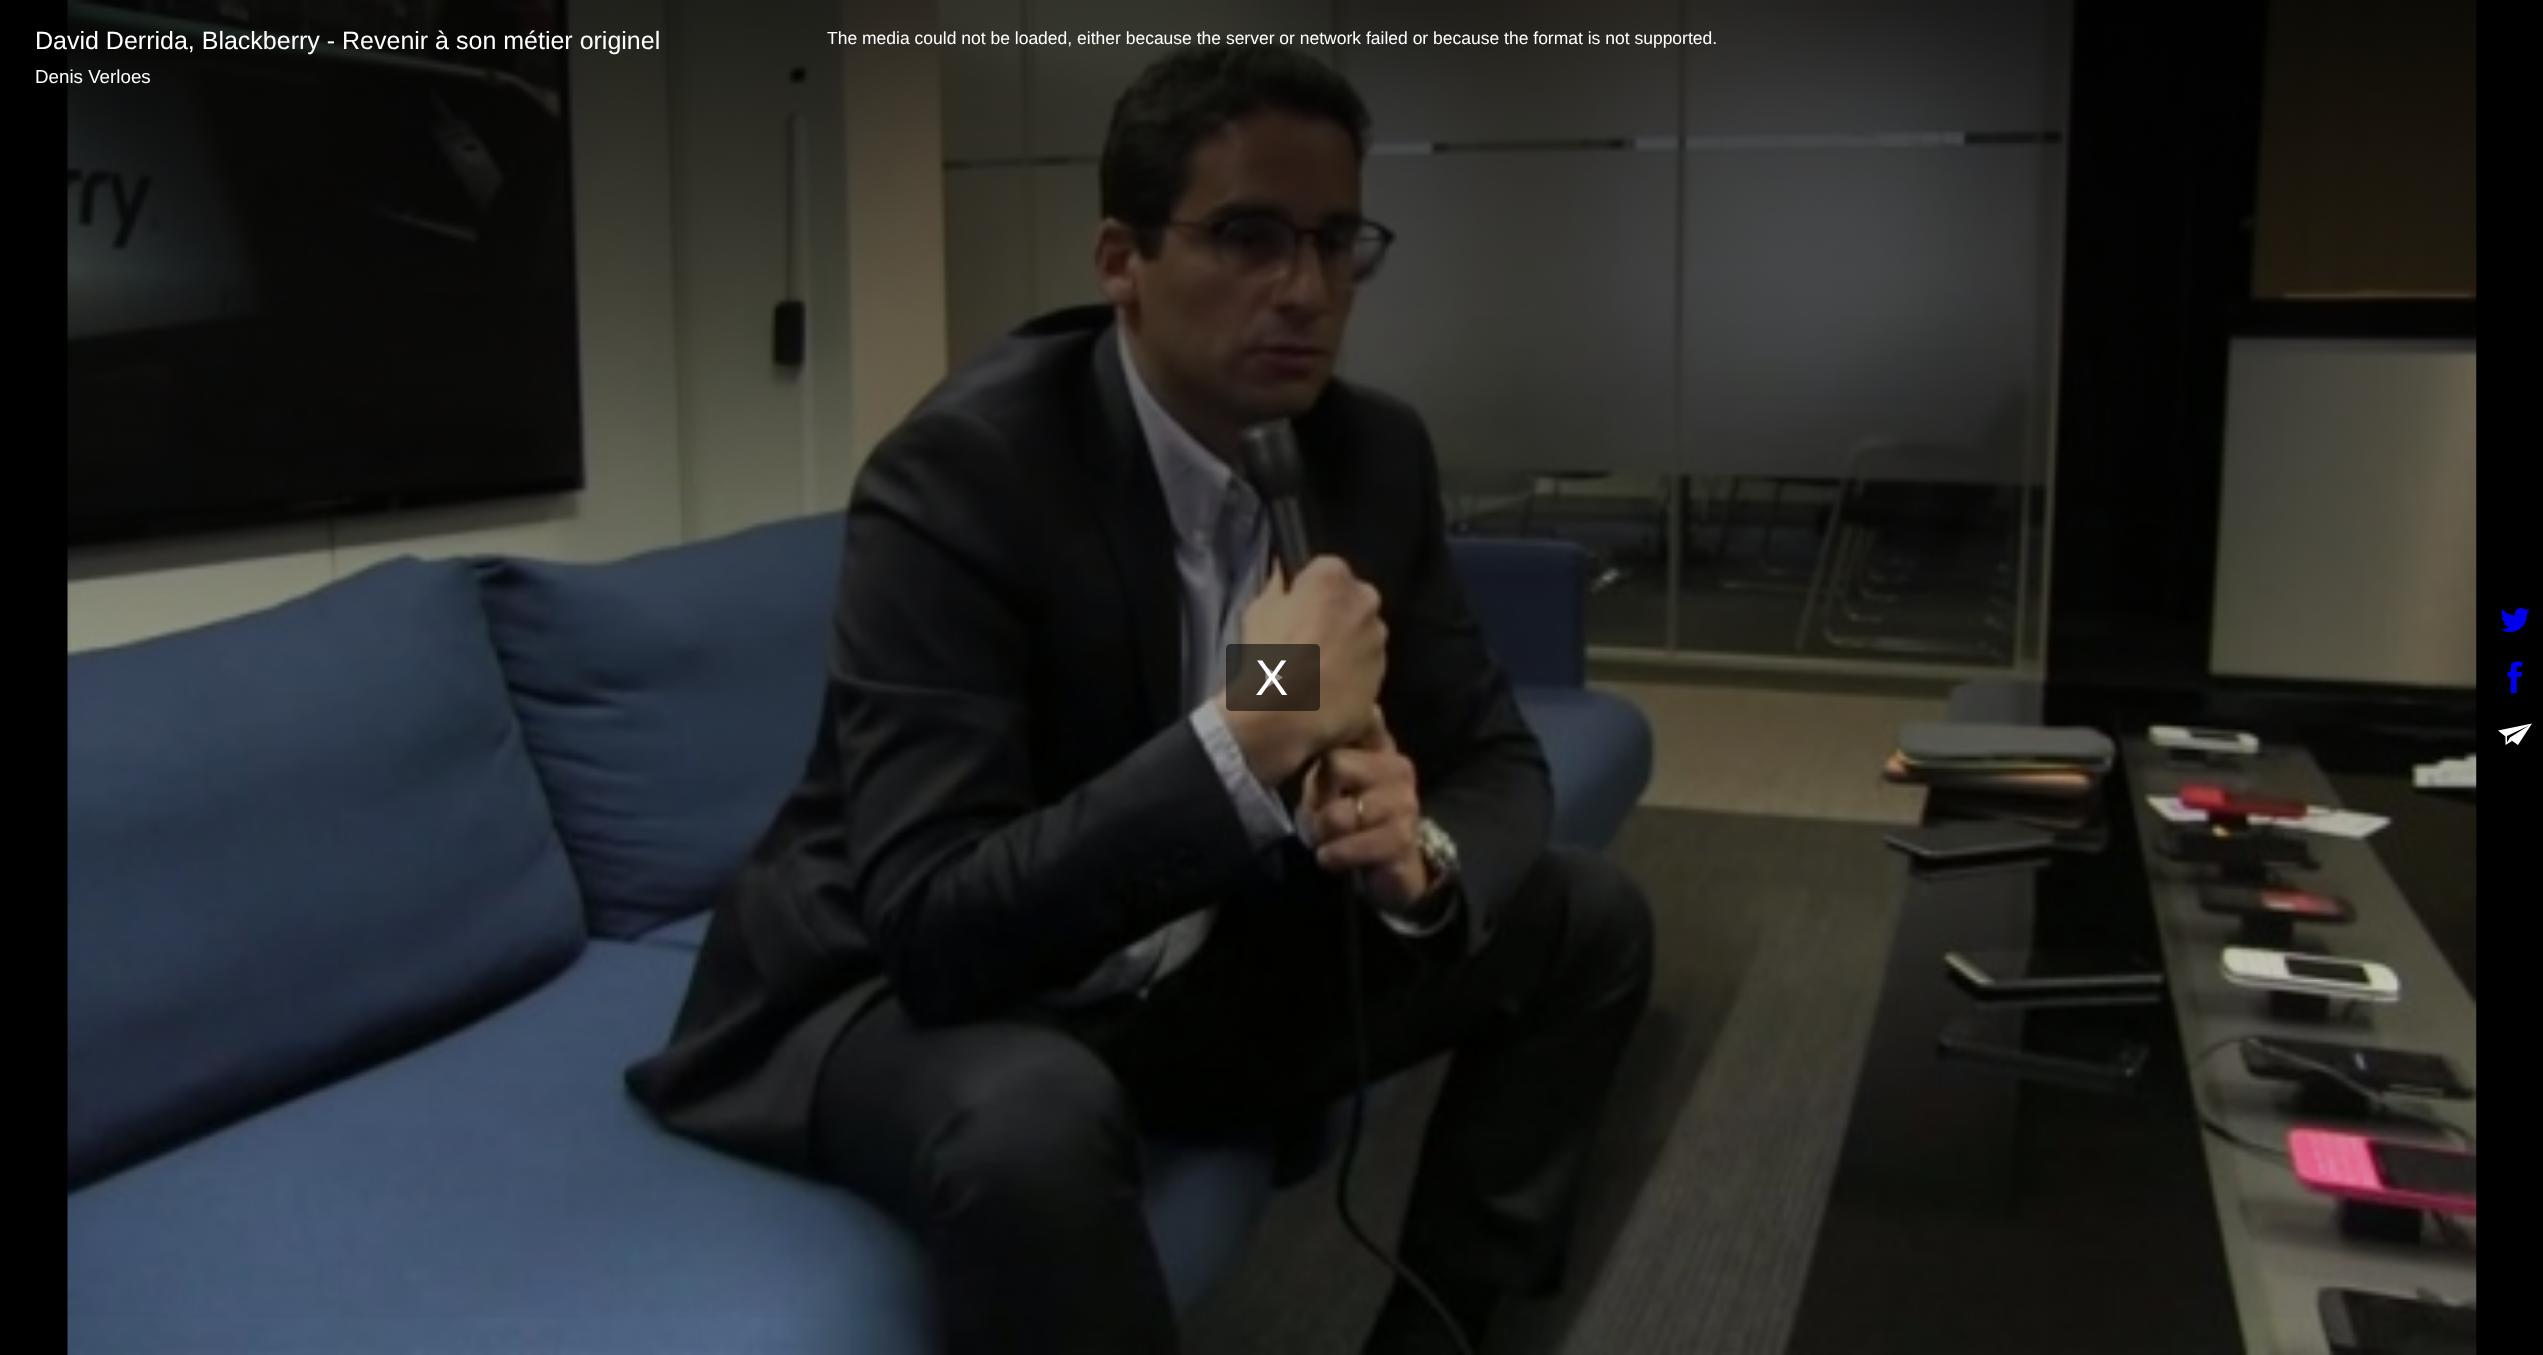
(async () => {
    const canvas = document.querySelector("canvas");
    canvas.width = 2543;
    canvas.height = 1355;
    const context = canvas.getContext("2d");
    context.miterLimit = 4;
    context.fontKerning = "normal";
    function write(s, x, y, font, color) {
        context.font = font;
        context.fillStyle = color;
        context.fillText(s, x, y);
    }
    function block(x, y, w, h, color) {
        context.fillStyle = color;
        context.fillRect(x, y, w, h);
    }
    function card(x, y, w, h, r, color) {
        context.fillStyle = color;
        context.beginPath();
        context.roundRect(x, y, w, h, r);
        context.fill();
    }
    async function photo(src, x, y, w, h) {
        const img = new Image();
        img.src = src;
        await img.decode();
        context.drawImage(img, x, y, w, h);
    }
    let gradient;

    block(0, 0, 2543, 1355, "rgb(0, 0, 0)");
    await photo("media/1.png", 67, 0, 2410, 1355);
    card(1226, 644, 94, 67, 5, "rgba(0, 0, 0, 0.56)");
    context.fillStyle = "rgba(255, 255, 255, 0.8)";
    context.beginPath();
    context.moveTo(1265.5, 666.5);
    context.lineTo(1265.5, 688.5);
    context.lineTo(1283, 677.5);
    context.closePath();
    context.fill();
    gradient = context.createLinearGradient(1272, 0, 1272, 1355);
    gradient.addColorStop(0, "rgba(0, 0, 0, 0.8)");
    gradient.addColorStop(1, "rgba(0, 0, 0, 0)");
    context.fillStyle = gradient;
    context.fillRect(67, 0, 2410, 1318);
    write("David Derrida, Blackberry - Revenir à son métier originel", 35, 49, "25px Liberation Sans", "rgb(255, 255, 255)");
    write("Denis Verloes", 35, 83, "18.75px Liberation Sans", "rgb(255, 255, 255)");
    write("The media could not be loaded, either because the server or network failed or because the format is not supported.", 827, 44, "17.5px Liberation Sans", "rgb(255, 255, 255)");
    write("X", 1255, 695, "50px Liberation Sans", "rgb(255, 255, 255)");
    await photo("media/2.png", 2500, 607, 30, 26);
    await photo("media/3.png", 2507, 661, 16, 33);
    context.beginPath();
    context.moveTo(2498, 730.5);
    context.lineTo(2505.5, 736.5);
    context.lineTo(2505.5, 745);
    context.lineTo(2512, 741);
    context.lineTo(2509.5, 739);
    context.lineTo(2518, 745);
    context.lineTo(2532, 723.5);
    context.closePath();
    context.moveTo(2529, 725.5);
    context.lineTo(2510, 737.5);
    context.lineTo(2507, 742.5);
    context.lineTo(2507, 736);
    context.closePath();
    context.fill();
})();
